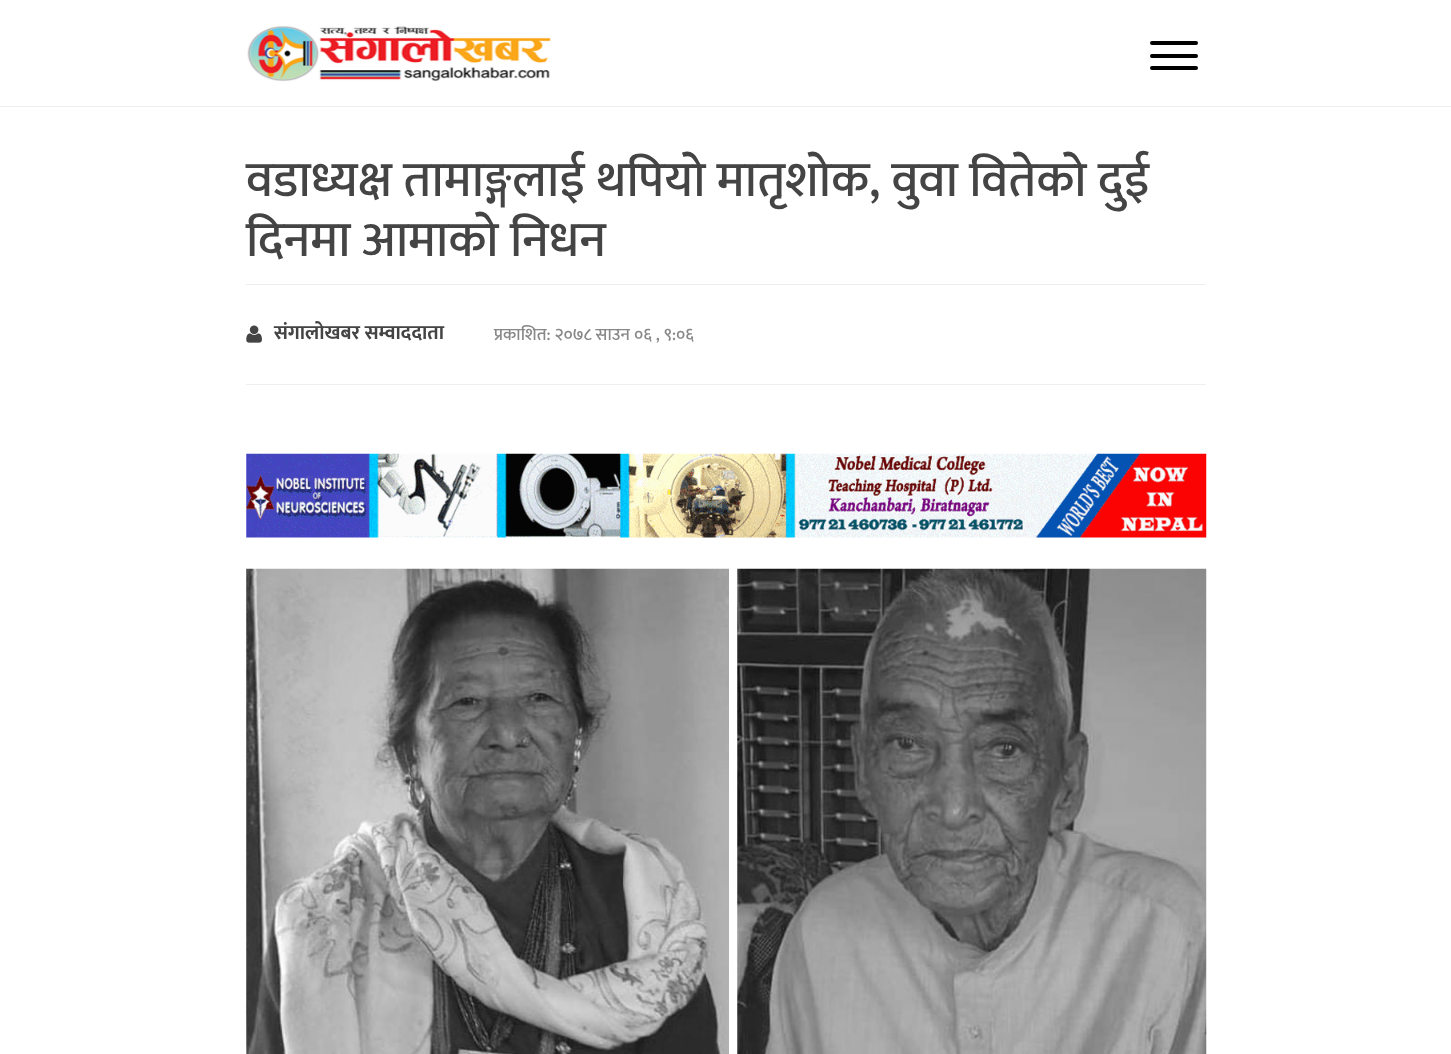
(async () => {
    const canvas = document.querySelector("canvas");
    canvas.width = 1451;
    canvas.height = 1054;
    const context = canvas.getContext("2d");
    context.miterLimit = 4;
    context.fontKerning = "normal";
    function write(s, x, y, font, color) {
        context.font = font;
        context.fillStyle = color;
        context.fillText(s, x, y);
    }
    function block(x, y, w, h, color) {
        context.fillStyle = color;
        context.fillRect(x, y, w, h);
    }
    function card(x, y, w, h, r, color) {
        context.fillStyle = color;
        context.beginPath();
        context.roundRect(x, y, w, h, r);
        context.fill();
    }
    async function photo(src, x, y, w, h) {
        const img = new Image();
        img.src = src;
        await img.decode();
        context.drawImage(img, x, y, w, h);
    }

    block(0, 0, 1451, 1054, "rgb(255, 255, 255)");
    block(0, 106, 1451, 1, "rgb(238, 238, 238)");
    await photo("media/1.png", 247, 26, 304, 56);
    card(1150, 41, 48, 4, 2, "rgb(0, 0, 0)");
    card(1150, 66, 48, 4, 2, "rgb(0, 0, 0)");
    card(1150, 54, 48, 4, 2, "rgb(0, 0, 0)");
    block(246, 284, 960, 1, "rgb(238, 238, 238)");
    write("वडाध्यक्ष तामाङ्गलाई थपियो मातृशोक, वुवा वितेको दुई", 246, 196, "500 50px Ek Mukta", "rgb(68, 68, 68)");
    write("दिनमा आमाको निधन", 246, 256, "500 50px Ek Mukta", "rgb(68, 68, 68)");
    await photo("media/2.png", 246, 325, 16, 18);
    write("संगालोखबर सम्वाददाता", 274, 339, "bold 20px Ek Mukta", "rgb(68, 68, 68)");
    write("प्रकाशित: २०७८ साउन ०६ , ९:०६", 494, 340, "500 17.5px Ek Mukta", "rgb(136, 136, 136)");
    block(246, 384, 960, 1, "rgb(238, 238, 238)");
    await photo("media/3.png", 246, 453, 961, 85);
    await photo("media/4.png", 246, 568, 961, 486);
})();
